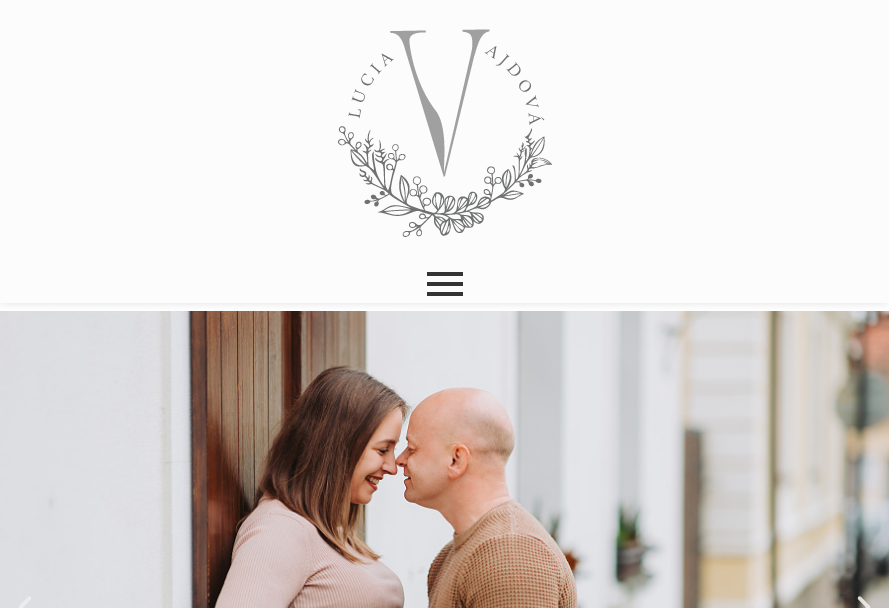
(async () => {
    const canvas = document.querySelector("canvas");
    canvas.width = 889;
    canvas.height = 608;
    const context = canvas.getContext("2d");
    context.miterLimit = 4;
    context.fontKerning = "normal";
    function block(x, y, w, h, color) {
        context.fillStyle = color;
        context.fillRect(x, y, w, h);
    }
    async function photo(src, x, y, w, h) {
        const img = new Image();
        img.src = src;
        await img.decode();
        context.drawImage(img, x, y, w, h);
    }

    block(0, 0, 889, 608, "rgb(255, 255, 255)");
    context.fillStyle = "rgba(0, 0, 0, 0.12)";
    context.filter = "blur(5px)";
    context.beginPath();
    context.rect(0, 0, 889, 303);
    context.fill();
    context.filter = "none";
    block(0, 0, 889, 303, "rgb(252, 252, 252)");
    await photo("media/1.png", 338, 29, 214, 208);
    block(427, 272, 36, 4, "rgb(51, 51, 51)");
    block(427, 282, 36, 4, "rgb(51, 51, 51)");
    block(427, 292, 36, 4, "rgb(51, 51, 51)");
    await photo("media/2.png", 0, 311, 889, 297);
    await photo("media/3.png", 19, 596, 12, 12);
    await photo("media/4.png", 857, 596, 14, 12);
})();
